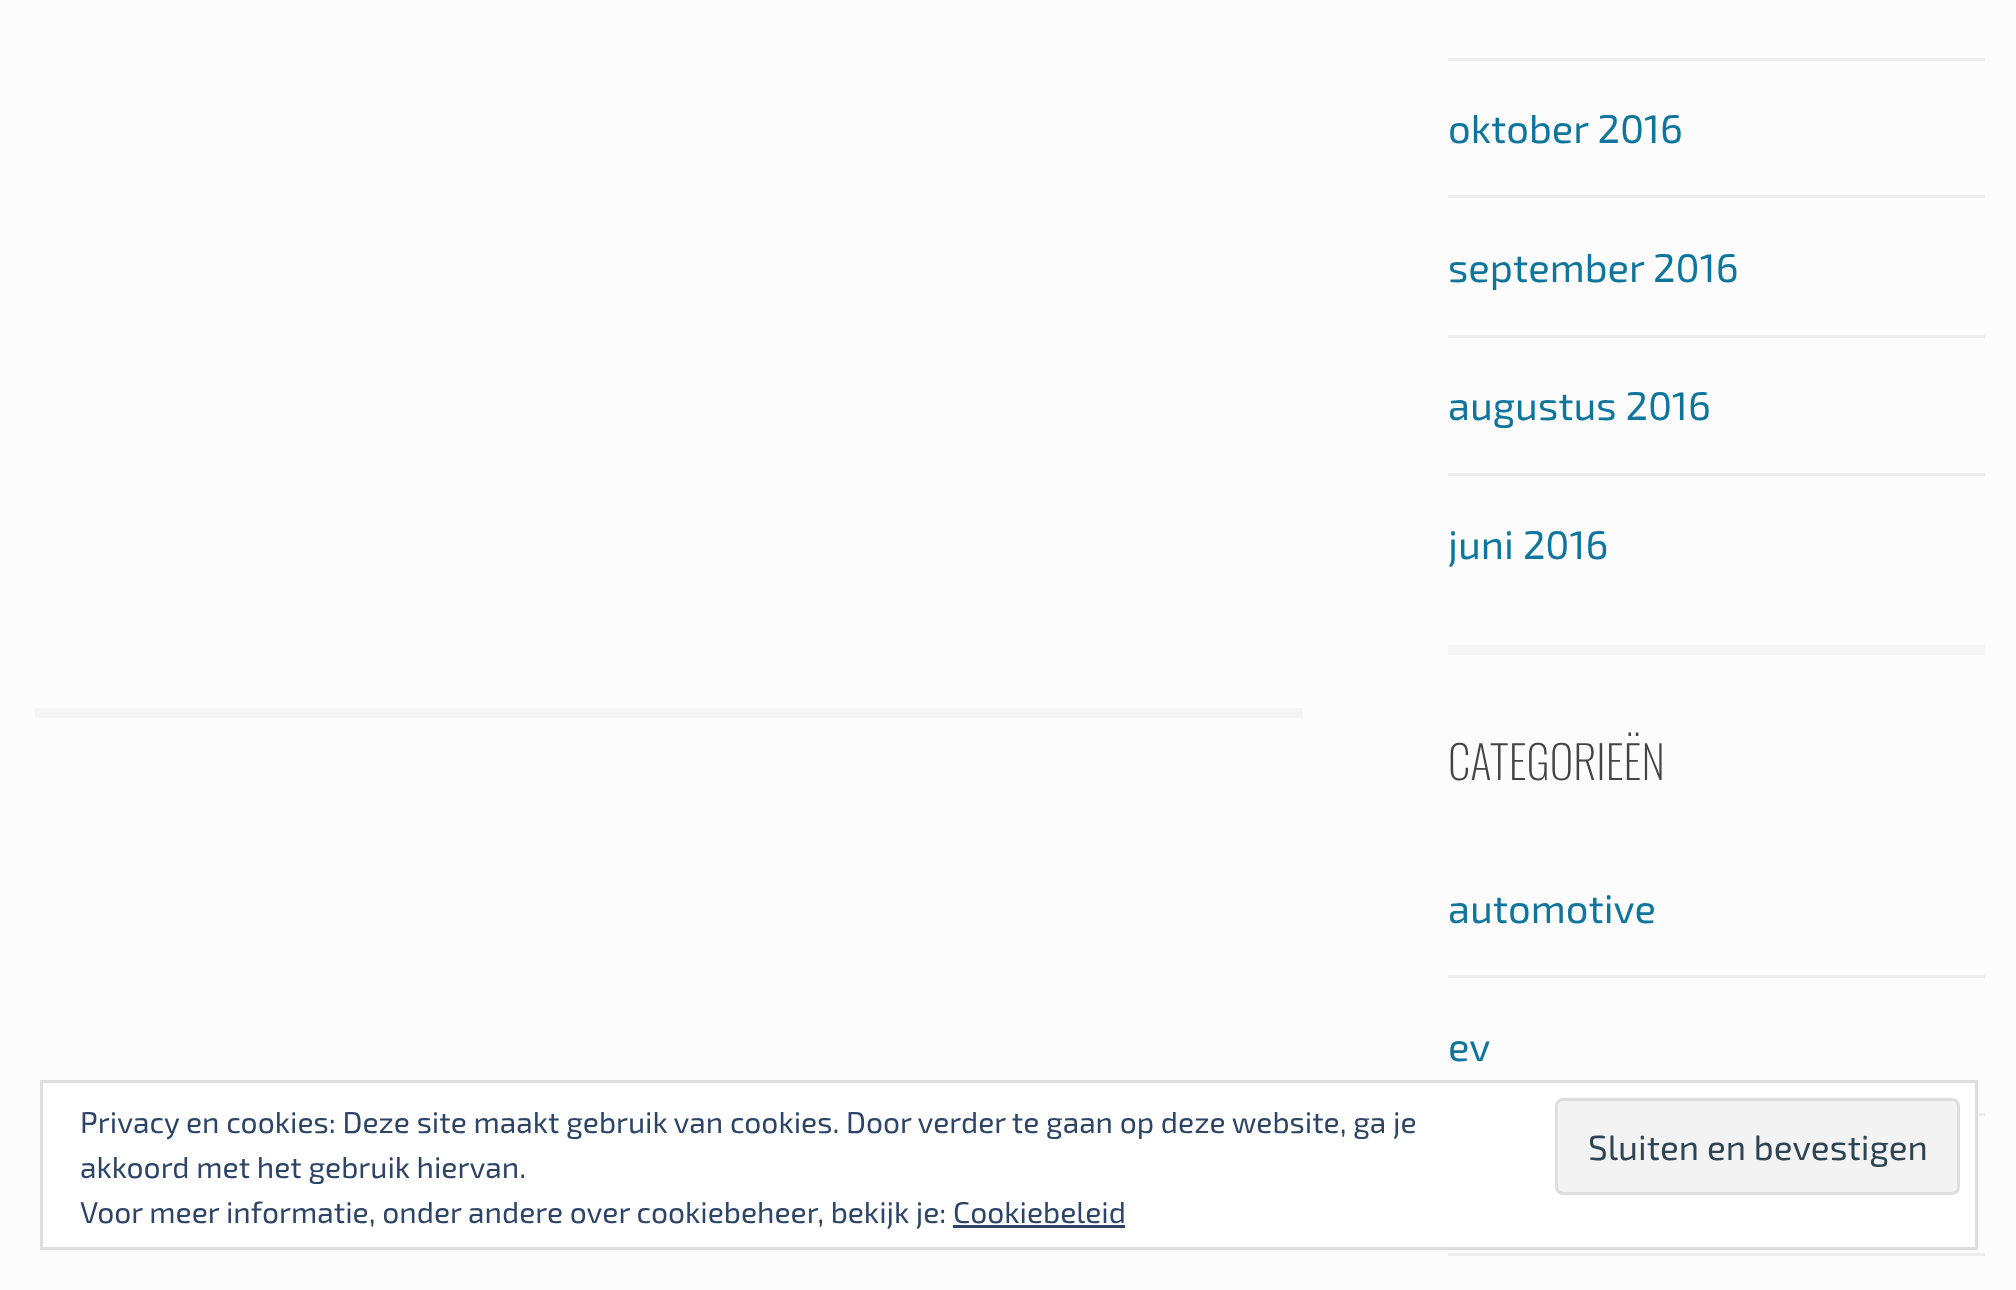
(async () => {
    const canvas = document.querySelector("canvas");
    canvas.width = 2016;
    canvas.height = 1290;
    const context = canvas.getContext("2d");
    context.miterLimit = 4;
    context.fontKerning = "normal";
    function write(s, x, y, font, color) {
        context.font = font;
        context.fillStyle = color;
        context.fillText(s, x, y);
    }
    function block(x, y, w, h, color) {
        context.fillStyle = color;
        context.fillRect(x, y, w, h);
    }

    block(0, 0, 2016, 1290, "rgb(252, 252, 252)");
    block(35, 708, 1268, 10, "rgb(245, 245, 245)");
    block(1448, 645, 537, 10, "rgb(245, 245, 245)");
    block(1448, 58, 537, 3, "rgb(238, 238, 238)");
    write("oktober 2016", 1448, 143, "40px 'Exo 2'", "rgb(16, 117, 156)");
    block(1448, 195, 537, 3, "rgb(238, 238, 238)");
    write("september 2016", 1448, 282, "40px 'Exo 2'", "rgb(16, 117, 156)");
    block(1448, 335, 537, 3, "rgb(238, 238, 238)");
    write("augustus 2016", 1448, 420, "40px 'Exo 2'", "rgb(16, 117, 156)");
    block(1448, 473, 537, 3, "rgb(238, 238, 238)");
    write("juni 2016", 1448, 559, "40px 'Exo 2'", "rgb(16, 117, 156)");
    write("CATEGORIEËN", 1448, 780, "200 45.5px Oswald", "rgb(68, 68, 68)");
    write("automotive", 1448, 923, "40px 'Exo 2'", "rgb(16, 117, 156)");
    block(1448, 975, 537, 3, "rgb(238, 238, 238)");
    write("ev", 1448, 1061, "40px 'Exo 2'", "rgb(16, 117, 156)");
    block(1978, 1113, 7, 3, "rgb(238, 238, 238)");
    block(1448, 1253, 537, 3, "rgb(238, 238, 238)");
    context.fillStyle = "rgb(255, 255, 255)";
    context.beginPath();
    context.rect(41.5, 1081.5, 1935, 167);
    context.fill();
    context.strokeStyle = "rgb(222, 222, 222)";
    context.lineWidth = 3;
    context.stroke();
    write("Privacy en cookies: Deze site maakt gebruik van cookies. Door verder te gaan op deze website, ga je", 80, 1133, "30px 'Exo 2'", "rgb(46, 68, 103)");
    context.fillStyle = "rgb(243, 243, 243)";
    context.beginPath();
    context.roundRect(1556.5, 1099.5, 402, 94, 6.5);
    context.fill();
    context.stroke();
    write("Sluiten en bevestigen", 1588, 1160, "35px 'Exo 2'", "rgb(46, 68, 83)");
    write("akkoord met het gebruik hiervan.", 80, 1178, "30px 'Exo 2'", "rgb(46, 68, 103)");
    write("Voor meer informatie, onder andere over cookiebeheer, bekijk je: Cookiebeleid", 80, 1223, "30px 'Exo 2'", "rgb(46, 68, 103)");
    block(953, 1225, 172, 3, "rgb(46, 68, 103)");
})();
